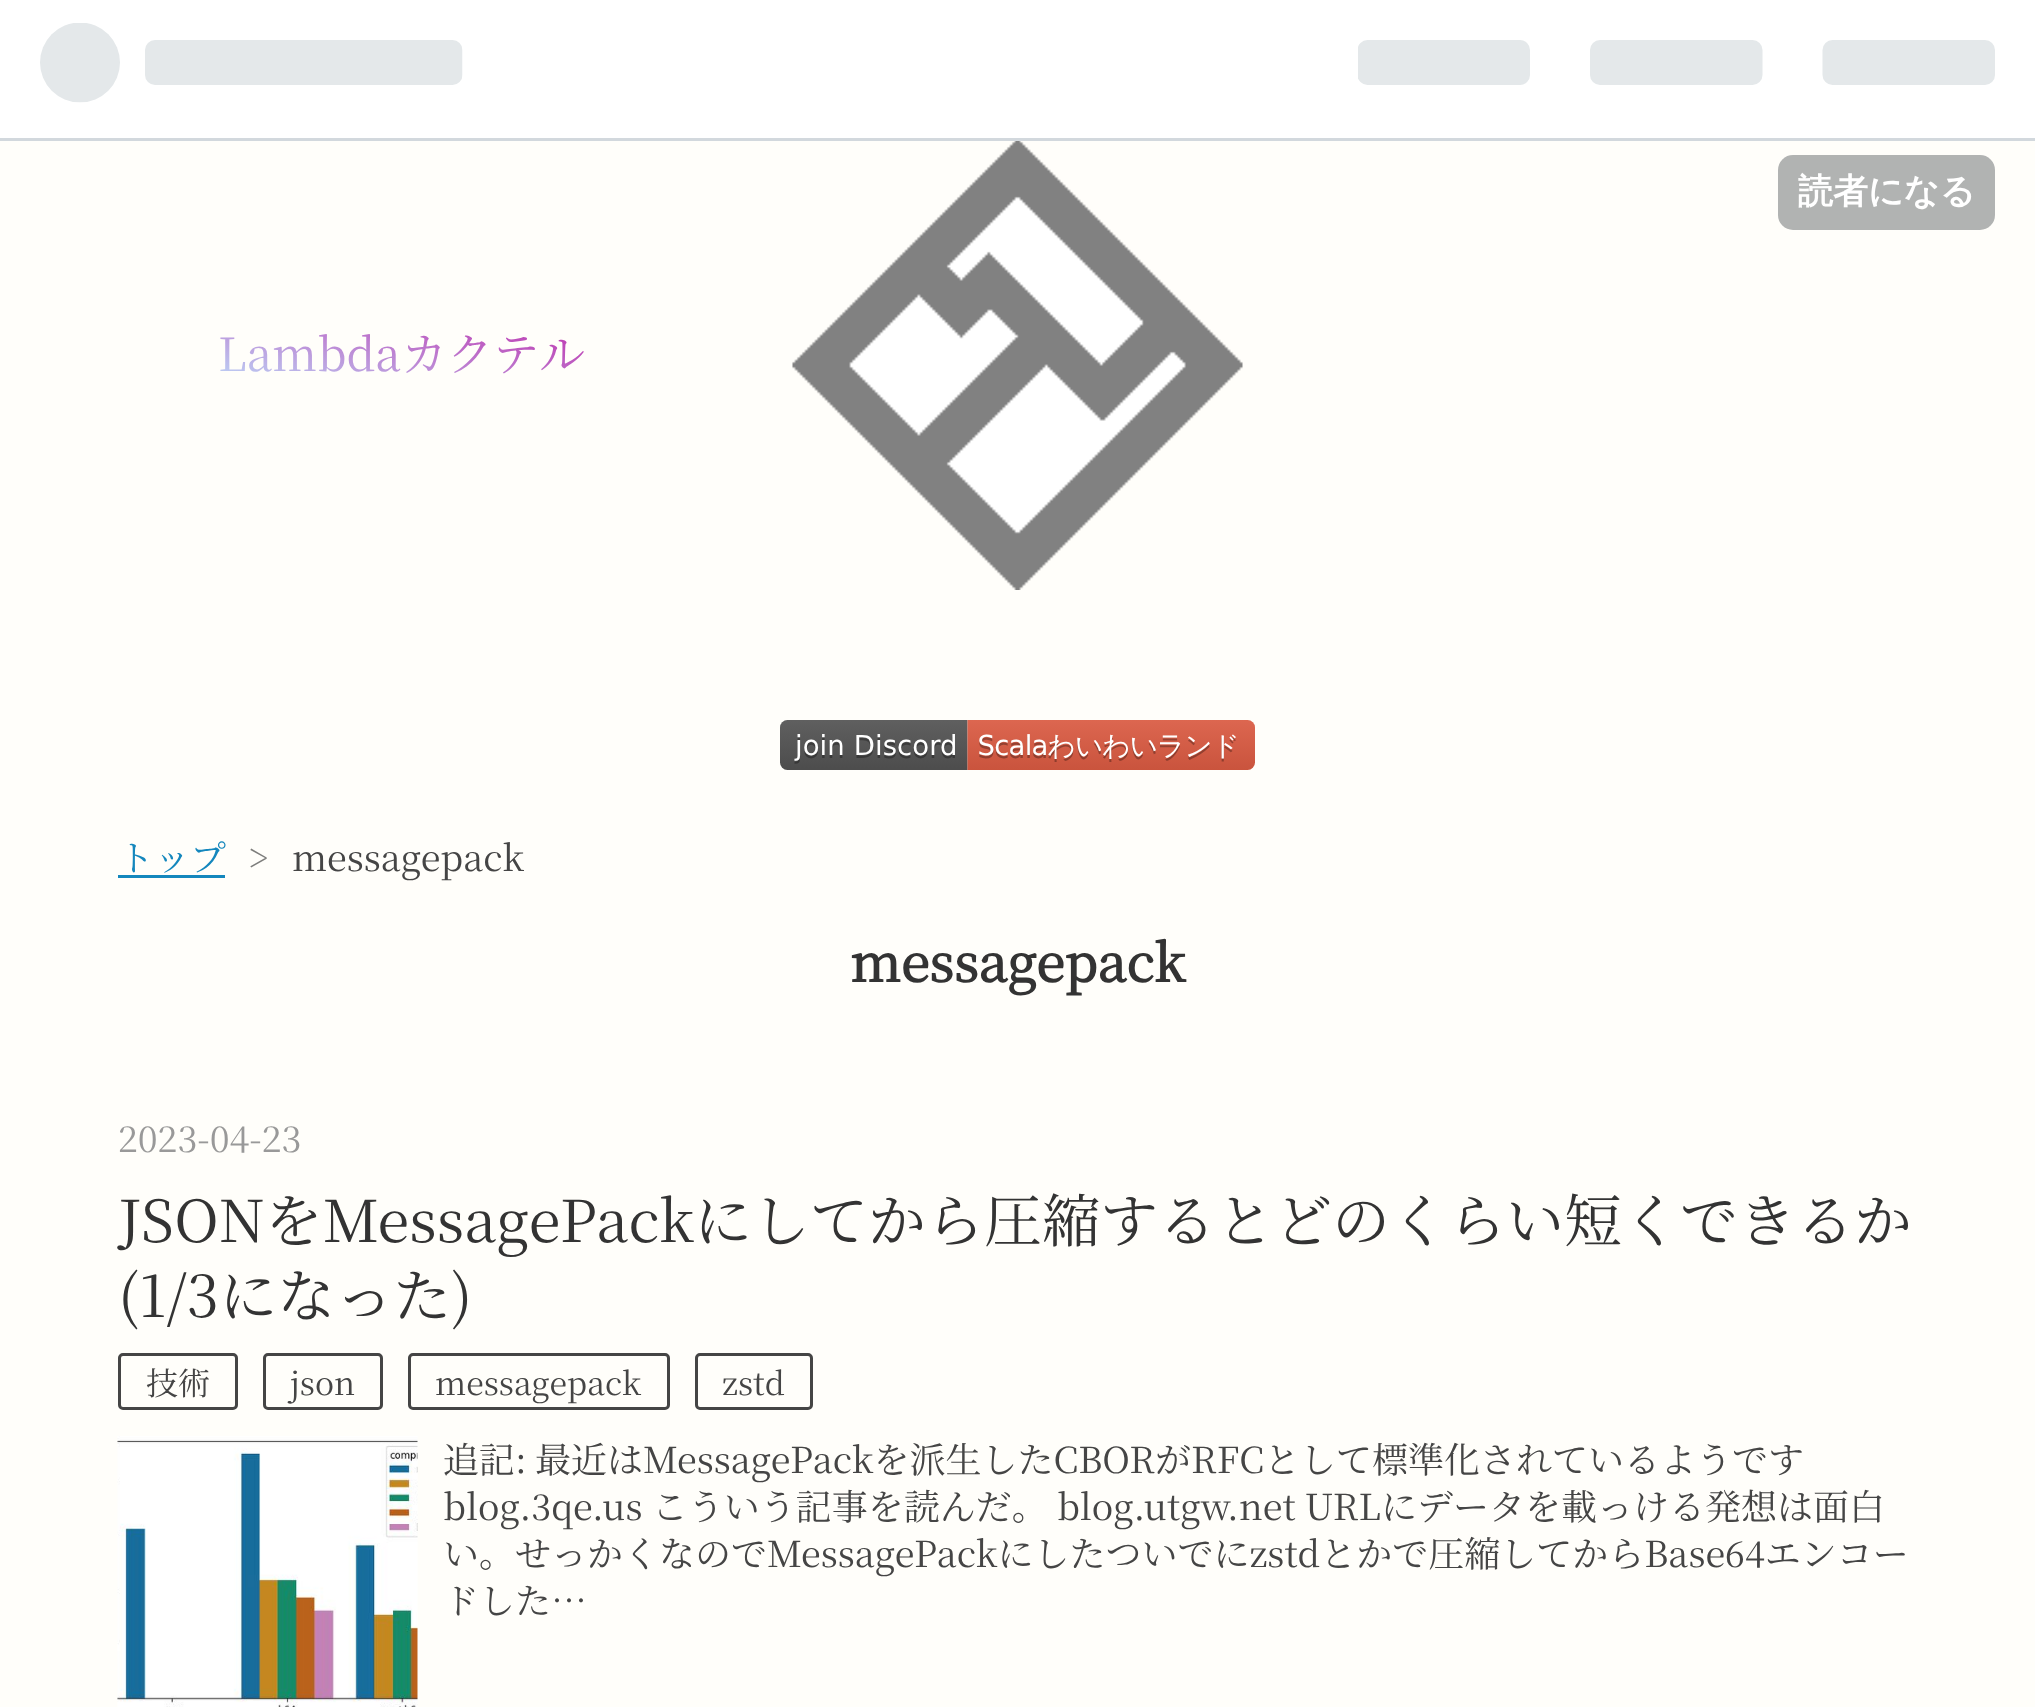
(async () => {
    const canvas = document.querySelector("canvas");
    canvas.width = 2035;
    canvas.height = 1707;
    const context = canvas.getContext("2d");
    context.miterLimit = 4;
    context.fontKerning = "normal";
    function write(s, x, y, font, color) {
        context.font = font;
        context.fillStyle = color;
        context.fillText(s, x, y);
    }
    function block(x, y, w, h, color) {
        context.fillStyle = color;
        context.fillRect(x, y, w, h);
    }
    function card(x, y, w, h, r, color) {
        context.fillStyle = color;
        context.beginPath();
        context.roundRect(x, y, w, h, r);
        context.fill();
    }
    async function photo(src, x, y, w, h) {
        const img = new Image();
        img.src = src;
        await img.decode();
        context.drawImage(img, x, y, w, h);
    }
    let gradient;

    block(0, 0, 2035, 1707, "rgb(255, 254, 250)");
    block(0, 0, 2035, 138, "rgb(255, 255, 255)");
    block(0, 138, 2035, 3, "rgb(210, 216, 221)");
    await photo("media/1.png", 40, 23, 423, 80);
    await photo("media/2.png", 1358, 40, 637, 45);
    card(1778, 155, 217, 75, 15, "rgb(177, 179, 178)");
    write("読者になる", 1798, 203, "bold 35px WenQuanYi Zen Hei", "rgb(255, 255, 255)");
    await photo("media/3.png", 792, 141, 451, 449);
    context.font = "200 46px Noto Serif JP";
    gradient = context.createLinearGradient(382, 424, 418, 277);
    gradient.addColorStop(0, "rgb(188, 216, 248)");
    gradient.addColorStop(1, "rgb(190, 37, 169)");
    context.fillStyle = gradient;
    context.fillText("Lambdaカクテル", 218, 371);
    await photo("media/4.png", 780, 720, 475, 50);
    write("トップ", 118, 871, "200 36px Noto Serif JP", "rgb(20, 135, 189)");
    block(118, 875, 107, 3, "rgb(20, 135, 189)");
    write(">", 248, 871, "200 36px Noto Serif JP", "rgb(125, 125, 123)");
    write("messagepack", 292, 871, "200 36px Noto Serif JP", "rgb(69, 69, 69)");
    write("messagepack", 850, 982, "bold 52px Noto Serif JP", "rgb(51, 51, 51)");
    write("2023-04-23", 118, 1152, "200 36px Noto Serif JP", "rgb(153, 153, 153)");
    write("JSONをMessagePackにしてから圧縮するとどのくらい短くできるか", 118, 1242, "200 58px Noto Serif JP", "rgb(51, 51, 51)");
    write("(1/3になった)", 118, 1317, "200 58px Noto Serif JP", "rgb(51, 51, 51)");
    context.beginPath();
    context.roundRect(119.5, 1354.5, 117, 54, 3.5);
    context.strokeStyle = "rgb(69, 69, 69)";
    context.lineWidth = 3;
    context.stroke();
    write("技術", 146, 1395, "200 32px Noto Serif JP", "rgb(69, 69, 69)");
    context.beginPath();
    context.roundRect(264.5, 1354.5, 117, 54, 3.5);
    context.stroke();
    write("json", 290, 1395, "200 32px Noto Serif JP", "rgb(69, 69, 69)");
    context.beginPath();
    context.roundRect(409.5, 1354.5, 259, 54, 3.5);
    context.stroke();
    write("messagepack", 435, 1395, "200 32px Noto Serif JP", "rgb(69, 69, 69)");
    context.beginPath();
    context.roundRect(696.5, 1354.5, 115, 54, 3.5);
    context.stroke();
    write("zstd", 722, 1395, "200 32px Noto Serif JP", "rgb(69, 69, 69)");
    await photo("media/5.png", 117, 1436, 301, 271);
    context.wordSpacing = "-1px";
    write("追記: 最近はMessagePackを派生したCBORがRFCとして標準化されているようです", 443, 1473, "200 36px Noto Serif JP", "rgb(69, 69, 69)");
    context.wordSpacing = "0px";
    write("blog.3qe.us こういう記事を読んだ。 blog.utgw.net URLにデータを載っける発想は面白", 443, 1520, "200 36px Noto Serif JP", "rgb(69, 69, 69)");
    write("い。せっかくなのでMessagePackにしたついでにzstdとかで圧縮してからBase64エンコー", 443, 1567, "200 36px Noto Serif JP", "rgb(69, 69, 69)");
    write("ドした…", 443, 1614, "200 36px Noto Serif JP", "rgb(69, 69, 69)");
})();
